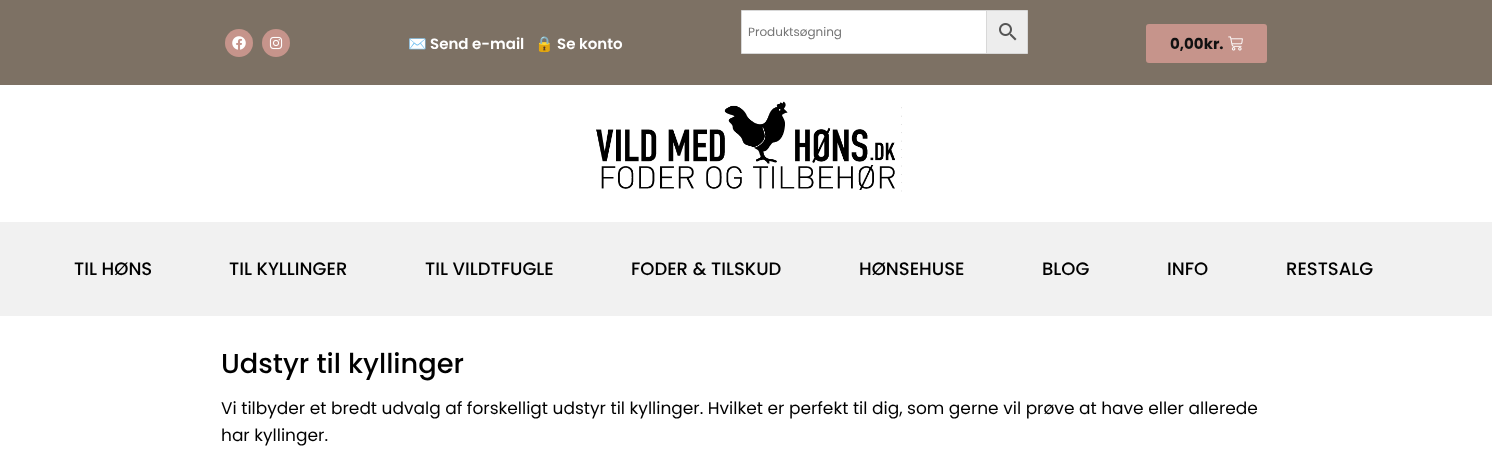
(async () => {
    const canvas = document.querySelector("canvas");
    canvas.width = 1492;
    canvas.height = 471;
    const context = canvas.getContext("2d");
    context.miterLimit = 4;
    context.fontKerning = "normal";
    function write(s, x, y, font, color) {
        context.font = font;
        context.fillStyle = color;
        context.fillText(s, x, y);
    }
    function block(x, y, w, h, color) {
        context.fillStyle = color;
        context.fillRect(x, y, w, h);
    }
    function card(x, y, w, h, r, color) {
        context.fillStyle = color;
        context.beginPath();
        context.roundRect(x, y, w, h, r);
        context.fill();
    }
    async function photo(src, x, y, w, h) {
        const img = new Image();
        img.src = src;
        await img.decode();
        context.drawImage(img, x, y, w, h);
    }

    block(0, 0, 1492, 471, "rgb(255, 255, 255)");
    block(0, 0, 1492, 85, "rgb(125, 113, 100)");
    context.fillStyle = "rgb(198, 148, 139)";
    context.beginPath();
    context.arc(239, 43, 14, 0, Math.PI * 2);
    context.fill();
    await photo("media/1.png", 232, 36, 14, 14);
    context.beginPath();
    context.arc(276, 43, 14, 0, Math.PI * 2);
    context.fill();
    await photo("media/2.png", 269, 36, 14, 14);
    write("✉️", 408, 49, "bold 15px Noto Color Emoji", "rgb(255, 255, 255)");
    write("Send e-mail", 430, 49, "600 15px Poppins", "rgb(255, 255, 255)");
    write("🔒", 535, 49, "bold 15px Noto Color Emoji", "rgb(255, 255, 255)");
    write("Se konto", 557, 49, "600 15px Poppins", "rgb(255, 255, 255)");
    context.fillStyle = "rgb(237, 237, 237)";
    context.beginPath();
    context.rect(986.5, 10.5, 41, 43);
    context.fill();
    context.strokeStyle = "rgb(216, 216, 216)";
    context.stroke();
    context.fillStyle = "rgb(255, 255, 255)";
    context.beginPath();
    context.rect(741.5, 10.5, 245, 43);
    context.fill();
    context.stroke();
    write("Produktsøgning", 748, 36, "12px Poppins", "rgb(117, 117, 117)");
    await photo("media/3.png", 999, 23, 18, 18);
    card(1146, 24, 121, 39, 3, "rgb(198, 148, 139)");
    write("0,00kr.", 1170, 49, "bold 15px Poppins", "rgb(17, 17, 17)");
    await photo("media/4.png", 1228, 36, 15, 15);
    await photo("media/5.png", 596, 101, 306, 91);
    block(0, 222, 1492, 94, "rgb(241, 241, 241)");
    write("TIL HØNS", 74, 275, "500 18px Poppins", "rgb(0, 0, 0)");
    write("TIL KYLLINGER", 229, 275, "500 18px Poppins", "rgb(0, 0, 0)");
    write("TIL VILDTFUGLE", 425, 275, "500 18px Poppins", "rgb(0, 0, 0)");
    write("FODER & TILSKUD", 631, 275, "500 18px Poppins", "rgb(0, 0, 0)");
    write("HØNSEHUSE", 859, 275, "500 18px Poppins", "rgb(0, 0, 0)");
    write("BLOG", 1042, 275, "500 18px Poppins", "rgb(0, 0, 0)");
    write("INFO", 1167, 275, "500 18px Poppins", "rgb(0, 0, 0)");
    write("RESTSALG", 1286, 275, "500 18px Poppins", "rgb(0, 0, 0)");
    write("Udstyr til kyllinger", 221, 373, "500 27.25px Poppins", "rgb(0, 0, 0)");
    write("Vi tilbyder et bredt udvalg af forskelligt udstyr til kyllinger. Hvilket er perfekt til dig, som gerne vil prøve at have eller allerede", 221, 414, "17px Poppins", "rgb(0, 0, 0)");
    write("har kyllinger.", 221, 441, "17px Poppins", "rgb(0, 0, 0)");
})();
